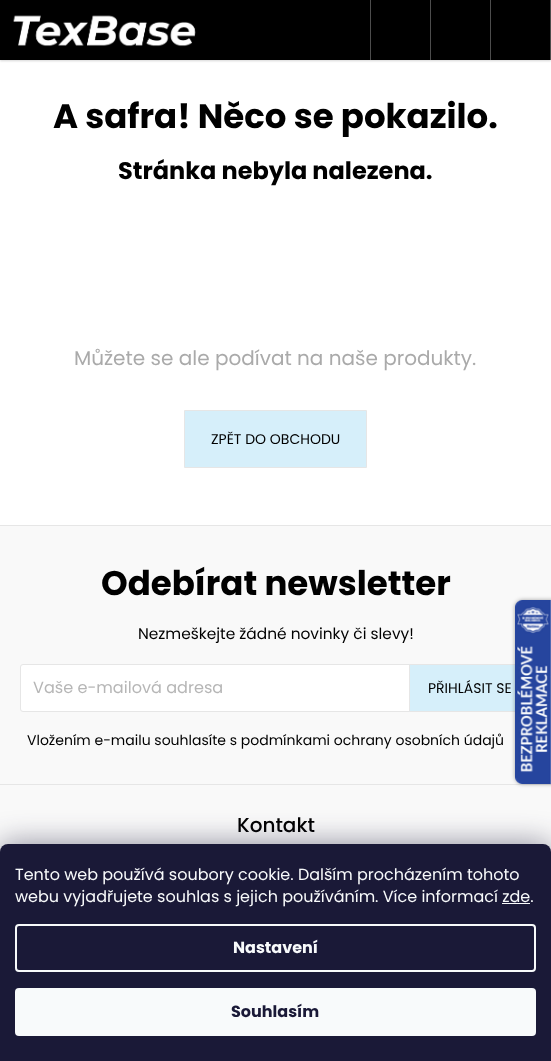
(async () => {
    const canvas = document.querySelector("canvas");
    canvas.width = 551;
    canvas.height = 1061;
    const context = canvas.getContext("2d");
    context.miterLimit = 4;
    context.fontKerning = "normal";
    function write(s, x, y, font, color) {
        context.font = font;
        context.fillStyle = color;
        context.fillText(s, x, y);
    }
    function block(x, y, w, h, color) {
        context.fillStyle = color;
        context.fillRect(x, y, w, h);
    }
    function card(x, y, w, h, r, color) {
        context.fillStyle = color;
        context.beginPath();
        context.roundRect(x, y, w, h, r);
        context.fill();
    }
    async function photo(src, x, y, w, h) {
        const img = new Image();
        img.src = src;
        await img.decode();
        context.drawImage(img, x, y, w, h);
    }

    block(0, 0, 551, 1061, "rgb(255, 255, 255)");
    context.fillStyle = "rgba(0, 0, 0, 0.16)";
    context.filter = "blur(1px)";
    context.beginPath();
    context.rect(0, 1, 551, 60);
    context.fill();
    context.filter = "none";
    block(0, 0, 550, 60, "rgb(0, 0, 0)");
    await photo("media/1.png", 13, 15, 183, 32);
    block(550, 0, 1, 60, "rgb(77, 77, 77)");
    block(370, 0, 1, 60, "rgb(77, 77, 77)");
    block(430, 0, 1, 60, "rgb(77, 77, 77)");
    block(490, 0, 1, 60, "rgb(77, 77, 77)");
    write("A safra! Něco se pokazilo.", 53, 128, "bold 34px Poppins", "rgb(0, 0, 0)");
    write("Stránka nebyla nalezena.", 118, 179, "bold 24px Poppins", "rgb(0, 0, 0)");
    write("Můžete se ale podívat na naše produkty.", 74, 365, "20px Poppins", "rgb(170, 170, 170)");
    context.fillStyle = "rgb(214, 239, 250)";
    context.beginPath();
    context.rect(184.5, 410.5, 182, 57);
    context.fill();
    context.strokeStyle = "rgb(230, 230, 230)";
    context.stroke();
    write("ZPĚT DO OBCHODU", 211, 444, "14px Poppins", "rgb(0, 0, 0)");
    block(0, 526, 551, 326, "rgb(249, 249, 249)");
    block(0, 525, 551, 1, "rgb(230, 230, 230)");
    block(0, 784, 551, 1, "rgb(230, 230, 230)");
    write("Odebírat newsletter", 101, 595, "bold 34px Poppins", "rgb(0, 0, 0)");
    write("Nezmeškejte žádné novinky či slevy!", 138, 639, "15.4px Poppins", "rgb(0, 0, 0)");
    context.fillStyle = "rgb(255, 255, 255)";
    context.beginPath();
    context.roundRect(20.5, 664.5, 510, 47, 2.5);
    context.fill();
    context.stroke();
    write("Vaše e-mailová adresa", 33, 693, "16.1px Poppins", "rgb(182, 182, 182)");
    context.fillStyle = "rgb(214, 239, 250)";
    context.beginPath();
    context.rect(409.5, 664.5, 121, 47);
    context.fill();
    context.stroke();
    write("PŘIHLÁSIT SE", 428, 693, "14px Poppins", "rgb(0, 0, 0)");
    write("Vložením e-mailu souhlasíte s podmínkami ochrany osobních údajů", 27, 745, "14px Poppins", "rgb(0, 0, 0)");
    write("Kontakt", 237, 832, "500 20px Poppins", "rgb(0, 0, 0)");
    context.save();
    context.beginPath();
    context.moveTo(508, 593);
    context.lineTo(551, 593);
    context.lineTo(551, 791);
    context.lineTo(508, 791);
    context.closePath();
    context.moveTo(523, 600);
    context.lineTo(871, 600);
    context.lineTo(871, 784);
    context.lineTo(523, 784);
    context.bezierCurveTo(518.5, 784, 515, 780.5, 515, 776);
    context.lineTo(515, 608);
    context.bezierCurveTo(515, 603.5, 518.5, 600, 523, 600);
    context.closePath();
    context.clip("evenodd");
    context.fillStyle = "rgba(0, 0, 0, 0.35)";
    context.filter = "blur(2px)";
    context.beginPath();
    context.roundRect(515, 600, 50, 184, 8);
    context.fill();
    context.filter = "none";
    context.restore();
    await photo("media/2.png", 515, 600, 36, 184);
    context.fillStyle = "rgba(27, 25, 57, 0.5)";
    context.filter = "blur(15px)";
    context.beginPath();
    context.roundRect(0, 844, 551, 217, 8);
    context.fill();
    context.filter = "none";
    context.fillStyle = "rgb(26, 25, 55)";
    context.beginPath();
    context.roundRect(0, 844, 551, 217, [8, 8, 0, 0]);
    context.fill();
    write("Tento web používá soubory cookie. Dalším procházením tohoto", 15, 880, "16px Poppins", "rgb(248, 250, 251)");
    write("webu vyjadřujete souhlas s jejich používáním. Více informací zde.", 15, 902, "16px Poppins", "rgb(248, 250, 251)");
    block(502, 903, 28, 1, "rgb(248, 250, 251)");
    context.beginPath();
    context.roundRect(16, 925, 519, 46, 3);
    context.strokeStyle = "rgb(248, 250, 251)";
    context.lineWidth = 2;
    context.stroke();
    write("Nastavení", 233, 953, "bold 16px Poppins", "rgb(248, 250, 251)");
    card(15, 988, 521, 48, 4, "rgb(248, 250, 251)");
    write("Souhlasím", 231, 1017, "bold 16px Poppins", "rgb(26, 25, 55)");
})();
